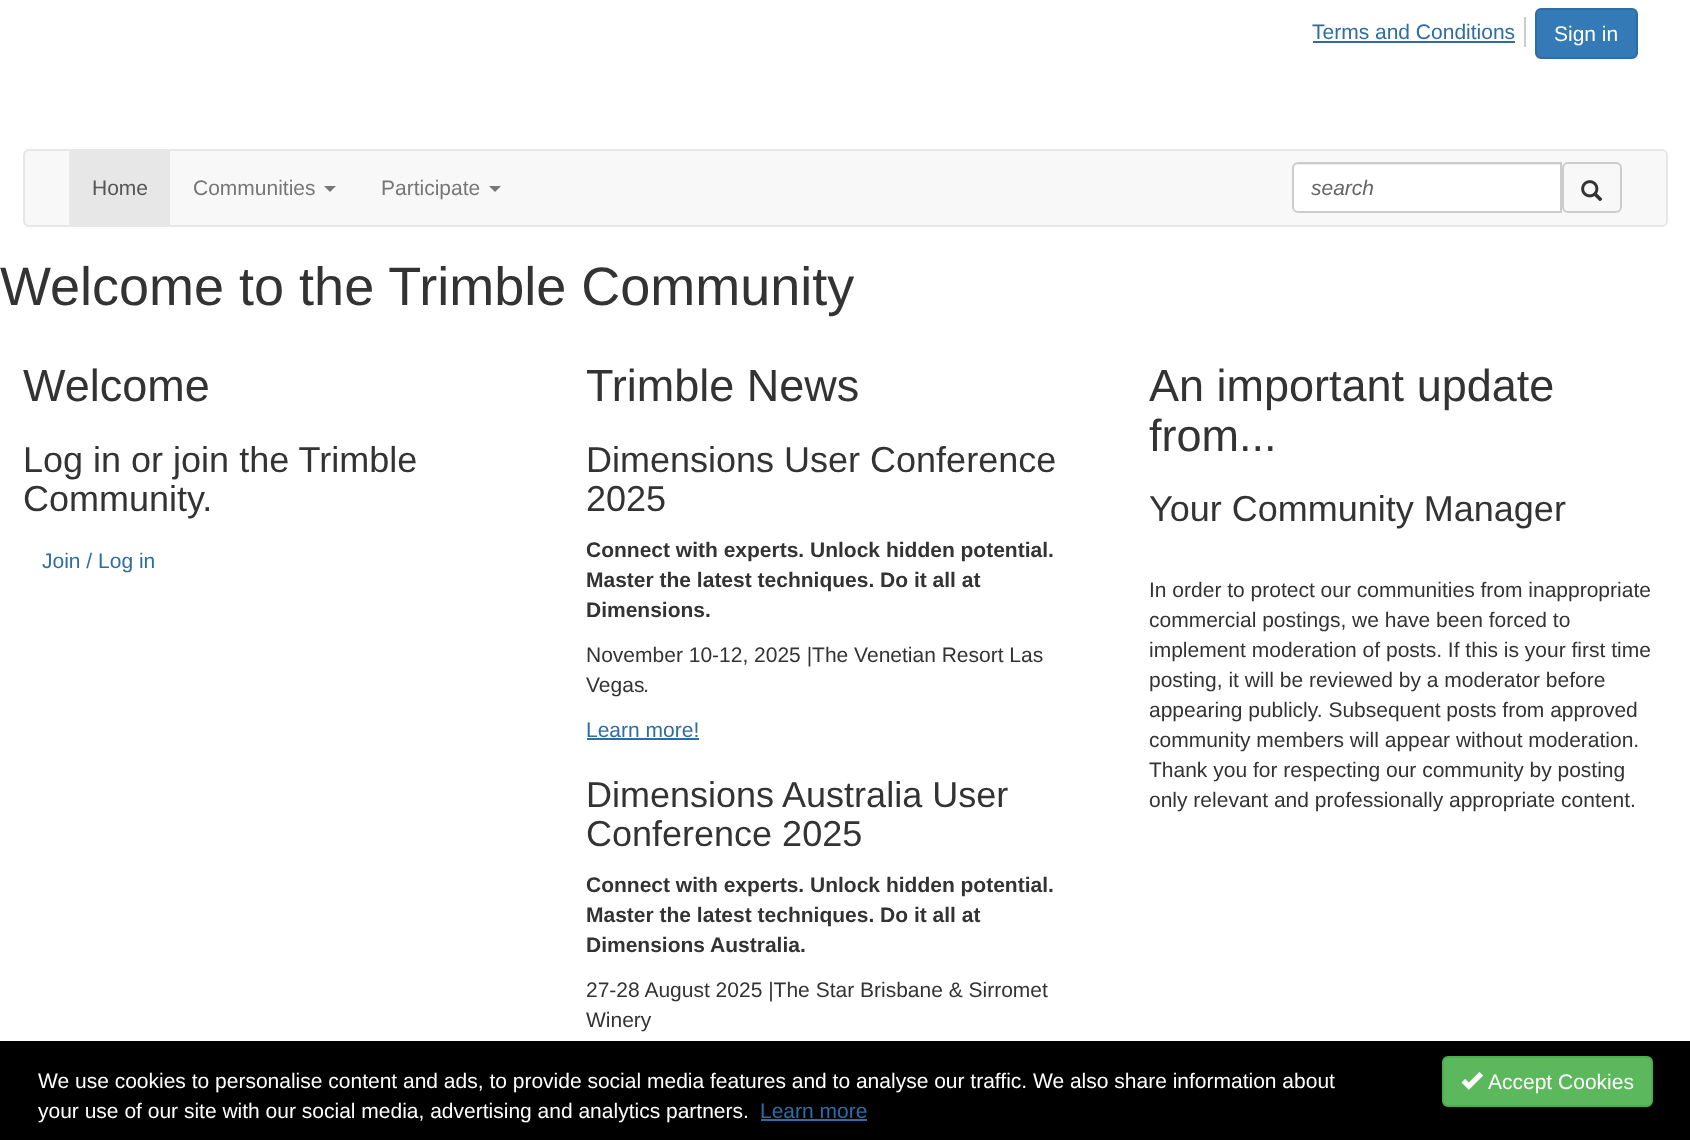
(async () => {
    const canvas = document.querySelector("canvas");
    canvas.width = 1690;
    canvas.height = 1140;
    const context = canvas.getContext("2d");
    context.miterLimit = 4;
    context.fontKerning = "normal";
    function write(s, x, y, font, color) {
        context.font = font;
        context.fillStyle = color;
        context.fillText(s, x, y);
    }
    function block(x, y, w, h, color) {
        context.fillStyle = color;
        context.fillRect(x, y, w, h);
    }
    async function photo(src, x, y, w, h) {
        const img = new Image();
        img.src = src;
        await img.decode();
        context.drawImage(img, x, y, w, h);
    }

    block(0, 0, 1690, 1140, "rgb(255, 255, 255)");
    block(1524, 17, 2, 30, "rgb(204, 204, 204)");
    write("Terms and Conditions", 1312, 39, "21px Liberation Sans", "rgb(46, 109, 164)");
    block(1313, 41, 202, 2, "rgb(46, 109, 164)");
    context.fillStyle = "rgb(51, 122, 183)";
    context.beginPath();
    context.roundRect(1536, 9, 101, 49, 5);
    context.fill();
    context.strokeStyle = "rgb(46, 109, 164)";
    context.lineWidth = 2;
    context.stroke();
    write("Sign in", 1554, 41, "21px Liberation Sans", "rgb(255, 255, 255)");
    context.fillStyle = "rgb(248, 248, 248)";
    context.beginPath();
    context.roundRect(24, 150, 1643, 76, 5);
    context.fill();
    context.strokeStyle = "rgb(231, 231, 231)";
    context.stroke();
    block(69, 151, 101, 74, "rgb(231, 231, 231)");
    write("Home", 92, 195, "21px Liberation Sans", "rgb(85, 85, 85)");
    write("Communities", 193, 195, "21px Liberation Sans", "rgb(119, 119, 119)");
    context.beginPath();
    context.moveTo(324, 186);
    context.lineTo(336, 186);
    context.lineTo(330, 192);
    context.closePath();
    context.fill();
    write("Participate", 381, 195, "21px Liberation Sans", "rgb(119, 119, 119)");
    context.beginPath();
    context.moveTo(489, 186);
    context.lineTo(501, 186);
    context.lineTo(495, 192);
    context.closePath();
    context.fill();
    context.fillStyle = "rgb(255, 255, 255)";
    context.beginPath();
    context.roundRect(1292, 162, 270, 51, [6, 0, 0, 6]);
    context.fill();
    context.fillStyle = "rgb(236, 236, 236)";
    context.beginPath();
    context.moveTo(1298, 165);
    context.lineTo(1560, 165);
    context.lineTo(1560, 164);
    context.lineTo(1298, 164);
    context.bezierCurveTo(1295, 164, 1293, 167, 1293, 170);
    context.bezierCurveTo(1293, 167, 1295, 165, 1298, 165);
    context.closePath();
    context.fill();
    context.beginPath();
    context.roundRect(1293, 163, 268, 49, [5, 0, 0, 5]);
    context.strokeStyle = "rgb(204, 204, 204)";
    context.stroke();
    write("search", 1311, 195, "italic 21px Liberation Sans", "rgb(102, 102, 102)");
    context.beginPath();
    context.roundRect(1563, 163, 58, 49, 5);
    context.stroke();
    await photo("media/1.png", 1581, 180, 22, 22);
    write("Welcome to the Trimble Community", 0, 305, "54px Liberation Sans", "rgb(51, 51, 51)");
    write("Welcome", 23, 401, "45px Liberation Sans", "rgb(51, 51, 51)");
    write("Log in or join the Trimble", 23, 472, "36px Liberation Sans", "rgb(51, 51, 51)");
    write("Community.", 23, 511, "36px Liberation Sans", "rgb(51, 51, 51)");
    write("Join / Log in", 42, 568, "21px Liberation Sans", "rgb(46, 109, 164)");
    write("Trimble News", 586, 401, "45px Liberation Sans", "rgb(51, 51, 51)");
    write("Dimensions User Conference", 586, 472, "36px Liberation Sans", "rgb(51, 51, 51)");
    write("2025", 586, 511, "36px Liberation Sans", "rgb(51, 51, 51)");
    write("Connect with experts. Unlock hidden potential.", 586, 557, "bold 21px Liberation Sans", "rgb(51, 51, 51)");
    write("Master the latest techniques. Do it all at", 586, 587, "bold 21px Liberation Sans", "rgb(51, 51, 51)");
    write("Dimensions.", 586, 617, "bold 21px Liberation Sans", "rgb(51, 51, 51)");
    write("November 10-12, 2025 |The Venetian Resort Las", 586, 662, "21px Liberation Sans", "rgb(51, 51, 51)");
    write("Vegas", 586, 692, "21px Liberation Sans", "rgb(51, 51, 51)");
    write(".", 644, 692, "italic 21px Liberation Sans", "rgb(51, 51, 51)");
    write("Learn more!", 586, 737, "21px Liberation Sans", "rgb(46, 109, 164)");
    block(587, 738, 112, 2, "rgb(46, 109, 164)");
    write("Dimensions Australia User", 586, 807, "36px Liberation Sans", "rgb(51, 51, 51)");
    write("Conference 2025", 586, 846, "36px Liberation Sans", "rgb(51, 51, 51)");
    write("Connect with experts. Unlock hidden potential.", 586, 892, "bold 21px Liberation Sans", "rgb(51, 51, 51)");
    write("Master the latest techniques. Do it all at", 586, 922, "bold 21px Liberation Sans", "rgb(51, 51, 51)");
    write("Dimensions Australia.", 586, 952, "bold 21px Liberation Sans", "rgb(51, 51, 51)");
    write("27-28 August 2025 |The Star Brisbane & Sirromet", 586, 997, "21px Liberation Sans", "rgb(51, 51, 51)");
    write("Winery", 586, 1027, "21px Liberation Sans", "rgb(51, 51, 51)");
    write("An important update", 1149, 401, "45px Liberation Sans", "rgb(51, 51, 51)");
    write("from...", 1149, 451, "45px Liberation Sans", "rgb(51, 51, 51)");
    write("Your Community Manager", 1149, 521, "36px Liberation Sans", "rgb(51, 51, 51)");
    write("In order to protect our communities from inappropriate", 1149, 597, "21px Liberation Sans", "rgb(51, 51, 51)");
    write("commercial postings, we have been forced to", 1149, 627, "21px Liberation Sans", "rgb(51, 51, 51)");
    write("implement moderation of posts. If this is your first time", 1149, 657, "21px Liberation Sans", "rgb(51, 51, 51)");
    write("posting, it will be reviewed by a moderator before", 1149, 687, "21px Liberation Sans", "rgb(51, 51, 51)");
    write("appearing publicly. Subsequent posts from approved", 1149, 717, "21px Liberation Sans", "rgb(51, 51, 51)");
    write("community members will appear without moderation.", 1149, 747, "21px Liberation Sans", "rgb(51, 51, 51)");
    write("Thank you for respecting our community by posting", 1149, 777, "21px Liberation Sans", "rgb(51, 51, 51)");
    write("only relevant and professionally appropriate content.", 1149, 807, "21px Liberation Sans", "rgb(51, 51, 51)");
    block(0, 1041, 1690, 99, "rgb(0, 0, 0)");
    write("We use cookies to personalise content and ads, to provide social media features and to analyse our traffic. We also share information about", 38, 1088, "21px Liberation Sans", "rgb(255, 255, 255)");
    write("your use of our site with our social media, advertising and analytics partners.", 38, 1118, "21px Liberation Sans", "rgb(255, 255, 255)");
    write("Learn more", 760, 1118, "21px Liberation Sans", "rgb(46, 109, 164)");
    block(761, 1119, 106, 2, "rgb(46, 109, 164)");
    context.fillStyle = "rgb(92, 184, 92)";
    context.beginPath();
    context.roundRect(1443, 1057, 209, 49, 5);
    context.fill();
    context.strokeStyle = "rgb(76, 174, 76)";
    context.stroke();
    await photo("media/2.png", 1461, 1072, 22, 18);
    write("Accept Cookies", 1488, 1089, "21px Liberation Sans", "rgb(255, 255, 255)");
})();
